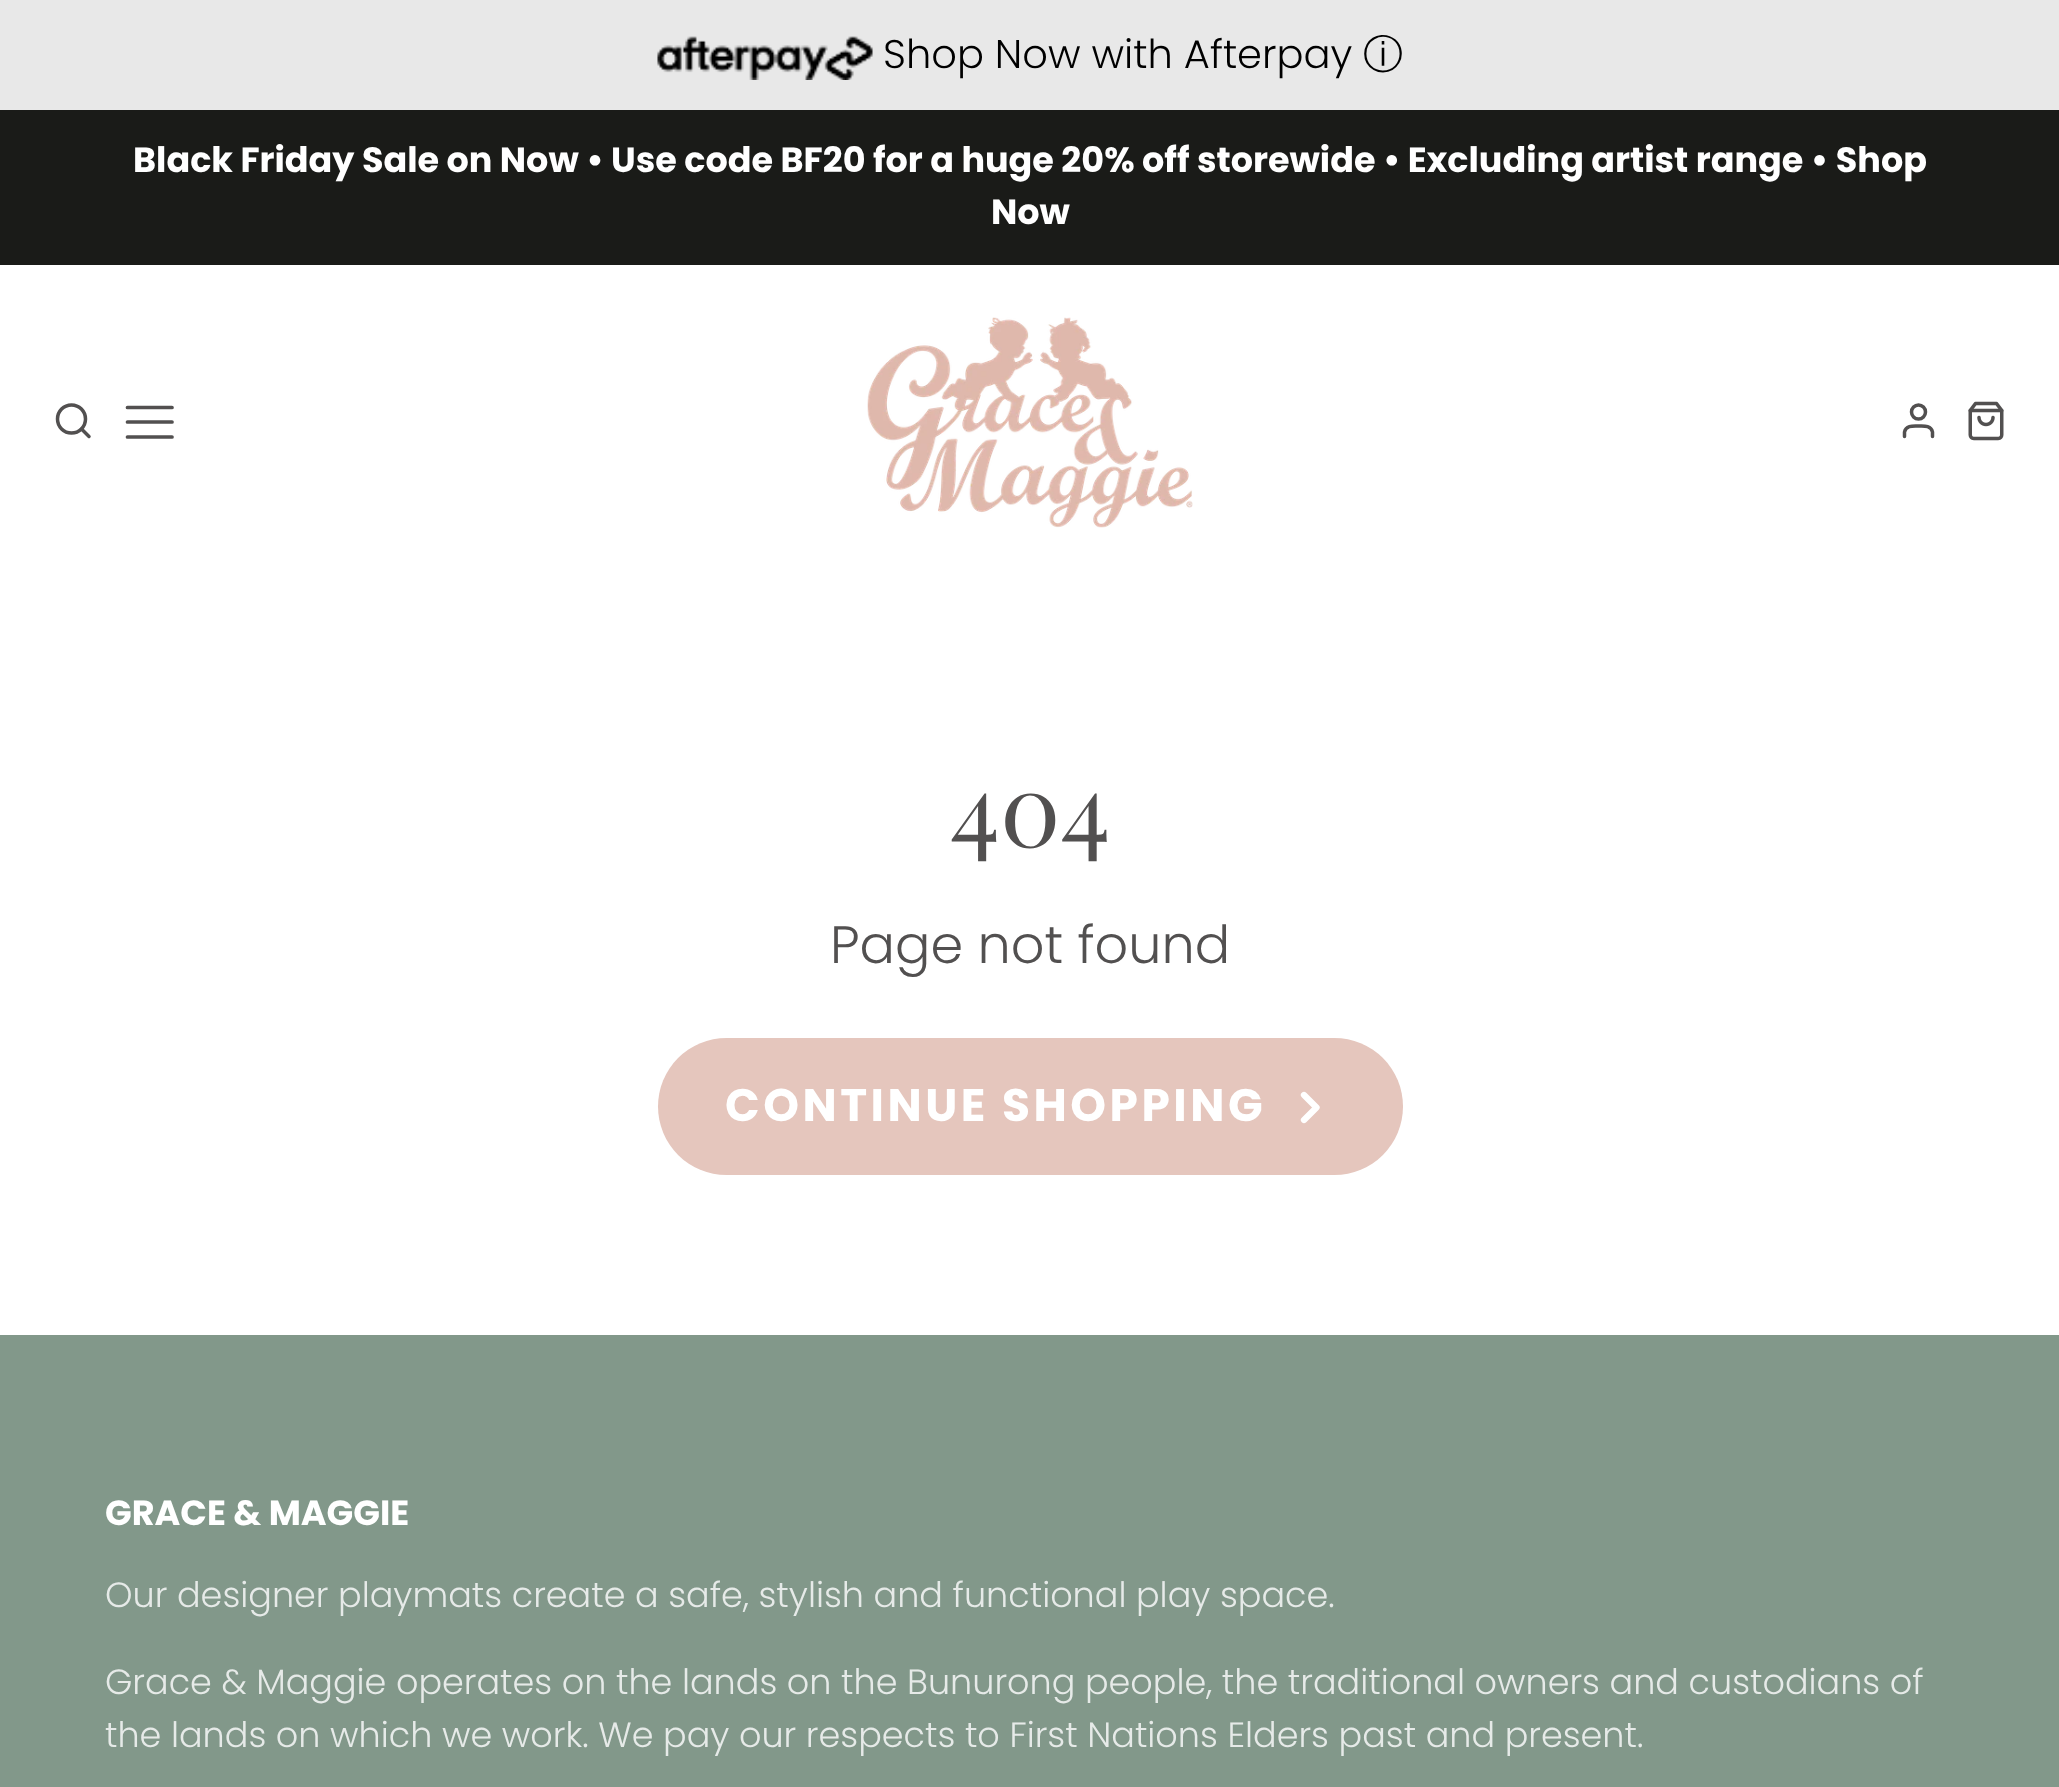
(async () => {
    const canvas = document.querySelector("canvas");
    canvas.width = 2059;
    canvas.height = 1787;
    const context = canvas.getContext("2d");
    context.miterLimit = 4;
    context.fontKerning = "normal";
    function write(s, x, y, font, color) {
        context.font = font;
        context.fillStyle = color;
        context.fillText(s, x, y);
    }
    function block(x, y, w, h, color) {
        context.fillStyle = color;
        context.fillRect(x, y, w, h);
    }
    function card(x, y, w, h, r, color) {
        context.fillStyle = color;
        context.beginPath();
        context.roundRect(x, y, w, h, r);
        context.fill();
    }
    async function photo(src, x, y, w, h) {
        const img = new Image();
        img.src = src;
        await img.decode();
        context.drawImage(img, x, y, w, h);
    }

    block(0, 0, 2059, 1787, "rgb(255, 255, 255)");
    block(0, 0, 2059, 110, "rgb(232, 232, 232)");
    await photo("media/1.png", 657, 36, 216, 44);
    write("Shop Now with Afterpay", 883, 68, "300 40px Poppins", "rgb(0, 0, 0)");
    write("ⓘ", 1363, 68, "500 40px WenQuanYi Zen Hei", "rgb(0, 0, 0)");
    block(0, 110, 2059, 155, "rgb(26, 27, 24)");
    write("Black Friday Sale on Now • Use code BF20 for a huge 20% off storewide • Excluding artist range • Shop", 133, 172, "bold 35px Poppins", "rgb(255, 255, 255)");
    write("Now", 991, 224, "bold 35px Poppins", "rgb(255, 255, 255)");
    context.beginPath();
    context.arc(71.5, 419, 14, 0, Math.PI * 2);
    context.strokeStyle = "rgb(82, 80, 80)";
    context.lineWidth = 3.5;
    context.stroke();
    context.beginPath();
    context.moveTo(89, 436.5);
    context.lineTo(81.5, 429);
    context.lineCap = "round";
    context.lineJoin = "round";
    context.stroke();
    context.beginPath();
    context.moveTo(127.5, 422);
    context.lineTo(172, 422);
    context.moveTo(127.5, 407.5);
    context.lineTo(172, 407.5);
    context.moveTo(127.5, 437);
    context.lineTo(172, 437);
    context.lineWidth = 3.7;
    context.stroke();
    await photo("media/2.png", 867, 317, 326, 211);
    context.beginPath();
    context.arc(1918.5, 412, 7, 0, Math.PI * 2);
    context.lineWidth = 3.5;
    context.stroke();
    context.beginPath();
    context.moveTo(1932.5, 436.5);
    context.lineTo(1932.5, 432);
    context.bezierCurveTo(1931, 425, 1923.5, 426, 1918.5, 426);
    context.bezierCurveTo(1913.5, 426, 1906, 425, 1904.5, 432);
    context.lineTo(1904.5, 436.5);
    context.stroke();
    await photo("media/3.png", 1968, 401, 36, 40);
    write("404", 950, 847, "101px Playfair Display", "rgb(82, 80, 80)");
    write("Page not found", 830, 963, "300 52.5px Poppins", "rgb(82, 80, 80)");
    card(658, 1038, 745, 137, 68.5, "rgb(229, 198, 189)");
    context.letterSpacing = "3.5px";
    write("CONTINUE SHOPPING", 725, 1121, "bold 45.5px Poppins", "rgb(255, 255, 255)");
    context.beginPath();
    context.moveTo(1304, 1120);
    context.lineTo(1316.5, 1107.5);
    context.lineTo(1304, 1095);
    context.strokeStyle = "rgb(255, 255, 255)";
    context.lineWidth = 6.3;
    context.stroke();
    block(0, 1335, 2059, 452, "rgb(130, 152, 138)");
    context.letterSpacing = "0px";
    write("GRACE & MAGGIE", 105, 1525, "bold 35px Poppins", "rgb(255, 255, 255)");
    write("Our designer playmats create a safe, stylish and functional play space.", 105, 1607, "300 35px Poppins", "rgb(230, 234, 232)");
    write("Grace & Maggie operates on the lands on the Bunurong people, the traditional owners and custodians of", 105, 1694, "300 35px Poppins", "rgb(230, 234, 232)");
    write("the lands on which we work. We pay our respects to First Nations Elders past and present.", 105, 1747, "300 35px Poppins", "rgb(230, 234, 232)");
})();
